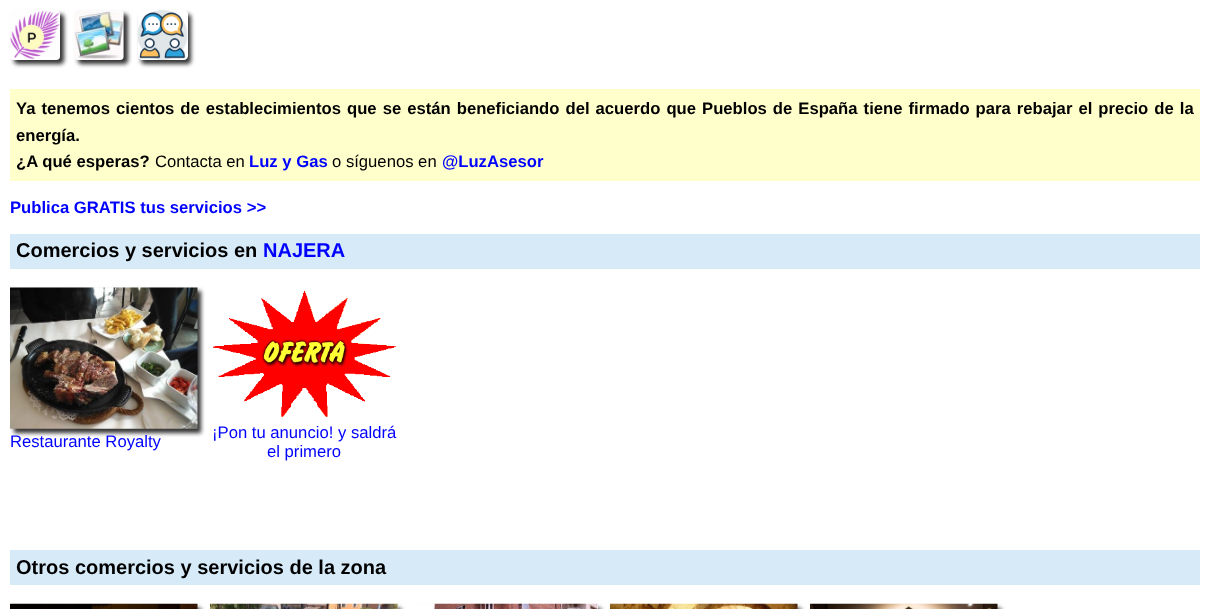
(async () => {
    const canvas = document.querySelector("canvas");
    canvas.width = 1210;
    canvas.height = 609;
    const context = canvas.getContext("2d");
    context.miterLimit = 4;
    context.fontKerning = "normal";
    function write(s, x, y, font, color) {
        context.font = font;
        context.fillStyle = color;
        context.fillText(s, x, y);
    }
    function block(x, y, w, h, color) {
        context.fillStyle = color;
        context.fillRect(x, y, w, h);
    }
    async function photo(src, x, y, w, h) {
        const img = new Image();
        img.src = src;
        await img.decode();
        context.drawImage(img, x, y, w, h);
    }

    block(0, 0, 1210, 609, "rgb(255, 255, 255)");
    context.fillStyle = "rgb(51, 51, 51)";
    context.filter = "blur(2px)";
    context.beginPath();
    context.roundRect(14, 14, 50, 50, 4);
    context.fill();
    context.filter = "none";
    context.filter = "blur(2px)";
    context.beginPath();
    context.roundRect(78, 14, 50, 50, 4);
    context.fill();
    context.filter = "none";
    context.save();
    context.beginPath();
    context.moveTo(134, 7);
    context.lineTo(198, 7);
    context.lineTo(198, 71);
    context.lineTo(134, 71);
    context.closePath();
    context.moveTo(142, 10);
    context.lineTo(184, 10);
    context.bezierCurveTo(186, 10, 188, 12, 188, 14);
    context.lineTo(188, 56);
    context.bezierCurveTo(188, 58, 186, 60, 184, 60);
    context.lineTo(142, 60);
    context.bezierCurveTo(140, 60, 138, 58, 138, 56);
    context.lineTo(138, 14);
    context.bezierCurveTo(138, 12, 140, 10, 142, 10);
    context.closePath();
    context.clip("evenodd");
    context.filter = "blur(2px)";
    context.beginPath();
    context.roundRect(141, 14, 50, 50, 4);
    context.fill();
    context.filter = "none";
    context.restore();
    await photo("media/1.png", 10, 10, 50, 50);
    await photo("media/2.png", 74, 10, 50, 50);
    await photo("media/3.png", 137, 10, 51, 50);
    block(10, 89, 1190, 92, "rgb(255, 255, 204)");
    context.wordSpacing = "1.4px";
    write("Ya tenemos cientos de establecimientos que se están beneficiando del acuerdo que Pueblos de España tiene firmado para rebajar el precio de la", 16, 114, "bold 16.67px Liberation Sans", "rgb(0, 0, 0)");
    context.wordSpacing = "0px";
    write("energía.", 16, 141, "bold 16.67px Liberation Sans", "rgb(0, 0, 0)");
    write("¿A qué esperas?", 16, 167, "bold 16.67px Liberation Sans", "rgb(0, 0, 0)");
    write("Contacta en", 155, 167, "16.67px Liberation Sans", "rgb(0, 0, 0)");
    write("Luz y Gas", 249, 167, "bold 16.67px Liberation Sans", "rgb(0, 0, 255)");
    write("o síguenos en", 332, 167, "16.67px Liberation Sans", "rgb(0, 0, 0)");
    write("@LuzAsesor", 442, 167, "bold 16.67px Liberation Sans", "rgb(0, 0, 255)");
    write("Publica GRATIS tus servicios >>", 10, 213, "bold 16.67px Liberation Sans", "rgb(0, 0, 255)");
    block(10, 234, 1190, 35, "rgb(214, 234, 248)");
    write("Comercios y servicios en", 16, 257, "bold 20px Liberation Sans", "rgb(0, 0, 0)");
    write("NAJERA", 263, 257, "bold 20px Liberation Sans", "rgb(0, 0, 255)");
    context.fillStyle = "rgb(51, 51, 51)";
    context.filter = "blur(2px)";
    context.beginPath();
    context.rect(14, 291, 187, 142);
    context.fill();
    context.filter = "none";
    await photo("media/4.png", 10, 287, 188, 142);
    write("Restaurante Royalty", 10, 447, "16.67px Liberation Sans", "rgb(0, 0, 255)");
    await photo("media/5.png", 213, 291, 184, 127);
    write("¡Pon tu anuncio! y saldrá", 212, 438, "16.67px Liberation Sans", "rgb(0, 0, 255)");
    write("el primero", 267, 457, "16.67px Liberation Sans", "rgb(0, 0, 255)");
    block(10, 550, 1190, 35, "rgb(214, 234, 248)");
    write("Otros comercios y servicios de la zona", 16, 574, "bold 20px Liberation Sans", "rgb(0, 0, 0)");
    context.fillStyle = "rgb(51, 51, 51)";
    context.filter = "blur(2px)";
    context.beginPath();
    context.rect(14, 608, 187, 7);
    context.fill();
    context.filter = "none";
    await photo("media/6.png", 10, 603, 188, 6);
    context.filter = "blur(2px)";
    context.beginPath();
    context.rect(214, 608, 187, 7);
    context.fill();
    context.filter = "none";
    await photo("media/7.png", 210, 603, 188, 6);
    context.save();
    context.beginPath();
    context.moveTo(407, 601);
    context.lineTo(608, 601);
    context.lineTo(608, 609);
    context.lineTo(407, 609);
    context.closePath();
    context.moveTo(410, 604);
    context.lineTo(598, 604);
    context.lineTo(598, 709);
    context.lineTo(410, 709);
    context.closePath();
    context.clip("evenodd");
    context.filter = "blur(2px)";
    context.beginPath();
    context.rect(414, 608, 187, 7);
    context.fill();
    context.filter = "none";
    context.restore();
    await photo("media/8.png", 432, 603, 166, 6);
    context.filter = "blur(2px)";
    context.beginPath();
    context.rect(614, 608, 187, 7);
    context.fill();
    context.filter = "none";
    await photo("media/9.png", 610, 603, 188, 6);
    context.filter = "blur(2px)";
    context.beginPath();
    context.rect(814, 608, 187, 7);
    context.fill();
    context.filter = "none";
    await photo("media/10.png", 810, 603, 188, 6);
})();
